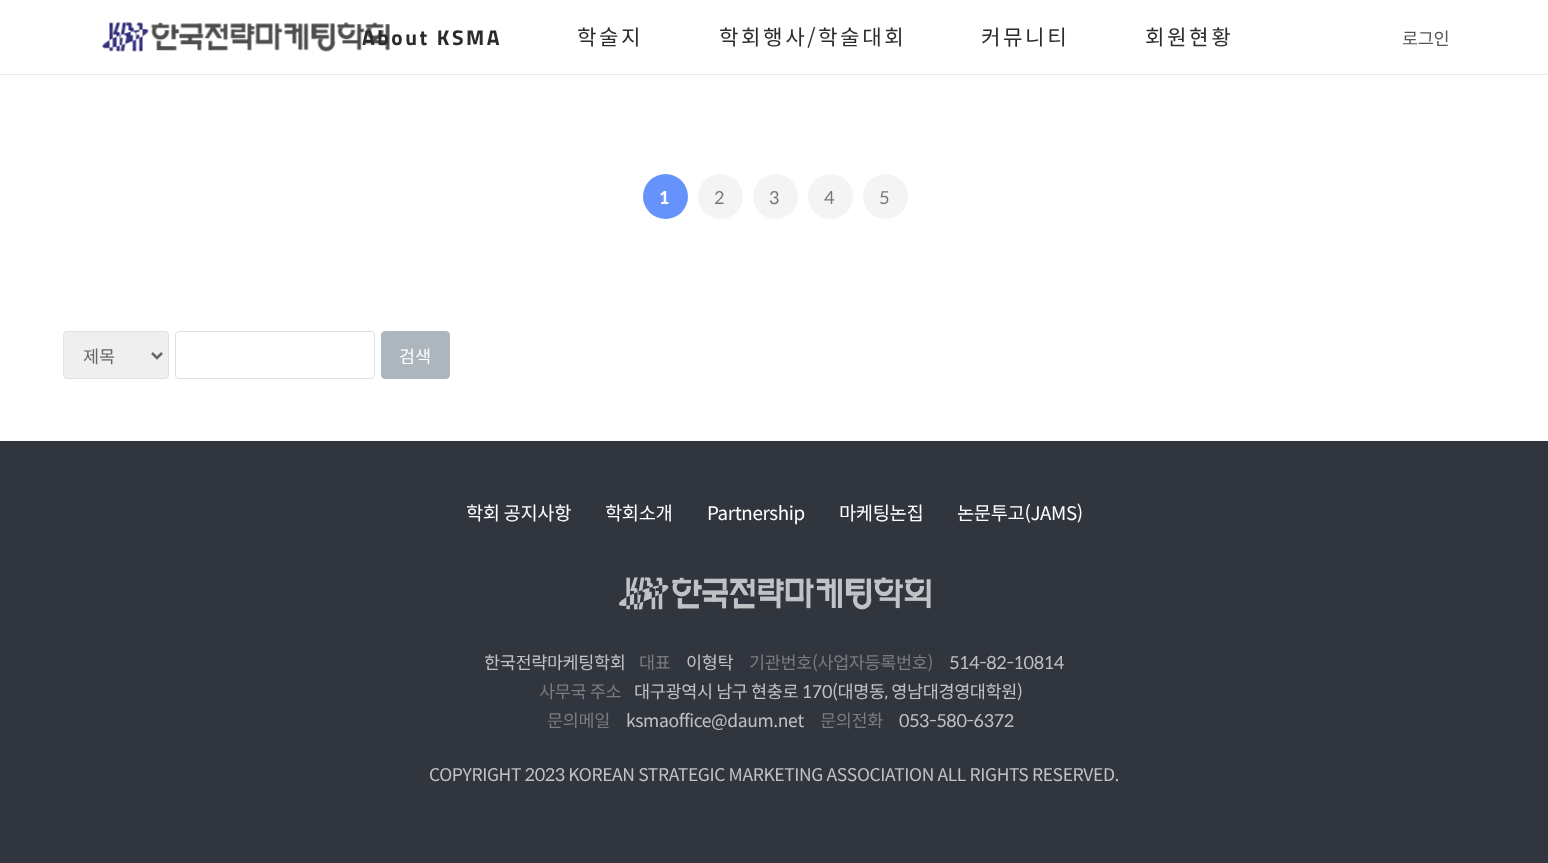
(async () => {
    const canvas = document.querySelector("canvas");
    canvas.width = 1548;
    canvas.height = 863;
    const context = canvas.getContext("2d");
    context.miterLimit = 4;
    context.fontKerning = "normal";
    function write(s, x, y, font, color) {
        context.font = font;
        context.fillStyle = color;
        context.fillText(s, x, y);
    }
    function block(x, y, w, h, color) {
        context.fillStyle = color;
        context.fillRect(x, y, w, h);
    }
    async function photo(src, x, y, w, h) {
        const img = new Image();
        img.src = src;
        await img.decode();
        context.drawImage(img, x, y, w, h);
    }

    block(0, 0, 1548, 863, "rgb(255, 255, 255)");
    block(0, 74, 1548, 1, "rgb(233, 233, 233)");
    await photo("media/1.png", 102, 22, 288, 30);
    context.letterSpacing = "2.5px";
    write("About KSMA", 362, 45, "bold 21.25px Titillium Web", "rgb(43, 43, 43)");
    write("학술지", 577, 45, "21.25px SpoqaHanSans", "rgb(43, 43, 43)");
    write("학회행사/학술대회", 719, 45, "21.25px SpoqaHanSans", "rgb(43, 43, 43)");
    write("커뮤니티", 981, 45, "21.25px SpoqaHanSans", "rgb(43, 43, 43)");
    write("회원현황", 1145, 45, "21.25px SpoqaHanSans", "rgb(43, 43, 43)");
    context.letterSpacing = "-0.38px";
    write("로그인", 1402, 45, "17.5px SpoqaHanSans", "rgb(85, 85, 85)");
    context.fillStyle = "rgb(102, 147, 251)";
    context.beginPath();
    context.arc(665.5, 196.5, 22.5, 0, Math.PI * 2);
    context.fill();
    write("1", 659, 204, "bold 17.5px SpoqaHanSans", "rgb(255, 255, 255)");
    context.fillStyle = "rgb(244, 244, 244)";
    context.beginPath();
    context.arc(720.5, 196.5, 22.5, 0, Math.PI * 2);
    context.fill();
    write("2", 714, 204, "17.5px SpoqaHanSans", "rgb(119, 119, 119)");
    context.fillStyle = "rgb(244, 244, 244)";
    context.beginPath();
    context.arc(775.5, 196.5, 22.5, 0, Math.PI * 2);
    context.fill();
    write("3", 769, 204, "17.5px SpoqaHanSans", "rgb(119, 119, 119)");
    context.fillStyle = "rgb(244, 244, 244)";
    context.beginPath();
    context.arc(830.5, 196.5, 22.5, 0, Math.PI * 2);
    context.fill();
    write("4", 824, 204, "17.5px SpoqaHanSans", "rgb(119, 119, 119)");
    context.fillStyle = "rgb(244, 244, 244)";
    context.beginPath();
    context.arc(885.5, 196.5, 22.5, 0, Math.PI * 2);
    context.fill();
    write("5", 879, 204, "17.5px SpoqaHanSans", "rgb(119, 119, 119)");
    context.fillStyle = "rgb(239, 239, 239)";
    context.beginPath();
    context.roundRect(63.5, 331.5, 105, 47, 3.5);
    context.fill();
    context.strokeStyle = "rgb(222, 226, 230)";
    context.stroke();
    context.beginPath();
    context.moveTo(152, 353);
    context.lineTo(157, 358);
    context.lineTo(162, 353);
    context.strokeStyle = "rgb(102, 102, 102)";
    context.lineWidth = 2.5;
    context.stroke();
    context.letterSpacing = "0px";
    write("제목", 83, 363, "17.5px SpoqaHanSans", "rgb(102, 102, 102)");
    context.beginPath();
    context.roundRect(175.5, 331.5, 199, 47, 3.5);
    context.strokeStyle = "rgb(222, 226, 230)";
    context.lineWidth = 1;
    context.stroke();
    context.fillStyle = "rgb(173, 181, 189)";
    context.beginPath();
    context.roundRect(381.5, 331.5, 68, 47, 3.5);
    context.fill();
    context.strokeStyle = "rgb(173, 181, 189)";
    context.stroke();
    write("검색", 399, 363, "17.5px SpoqaHanSans", "rgb(255, 255, 255)");
    block(0, 441, 1548, 422, "rgb(49, 53, 62)");
    context.letterSpacing = "-0.38px";
    write("학회 공지사항", 466, 520, "18.75px SpoqaHanSans", "rgb(255, 255, 255)");
    write("학회소개", 605, 520, "18.75px SpoqaHanSans", "rgb(255, 255, 255)");
    write("Partnership", 707, 520, "18.75px SpoqaHanSans", "rgb(255, 255, 255)");
    write("마케팅논집", 839, 520, "18.75px SpoqaHanSans", "rgb(255, 255, 255)");
    write("논문투고(JAMS)", 957, 520, "18.75px SpoqaHanSans", "rgb(255, 255, 255)");
    await photo("media/2.png", 619, 577, 312, 33);
    write("한국전략마케팅학회", 484, 669, "17.5px SpoqaHanSans", "rgb(193, 194, 197)");
    write("대표", 639, 669, "17.5px SpoqaHanSans", "rgb(121, 124, 130)");
    write("이형탁", 686, 669, "17.5px SpoqaHanSans", "rgb(193, 194, 197)");
    write("기관번호(사업자등록번호)", 749, 669, "17.5px SpoqaHanSans", "rgb(121, 124, 130)");
    write("514-82-10814", 949, 669, "17.5px SpoqaHanSans", "rgb(193, 194, 197)");
    write("사무국 주소", 539, 698, "17.5px SpoqaHanSans", "rgb(121, 124, 130)");
    write("대구광역시 남구 현충로 170(대명동, 영남대경영대학원)", 634, 698, "17.5px SpoqaHanSans", "rgb(193, 194, 197)");
    write("문의메일", 547, 727, "17.5px SpoqaHanSans", "rgb(121, 124, 130)");
    write("ksmaoffice@daum.net", 626, 727, "17.5px SpoqaHanSans", "rgb(193, 194, 197)");
    write("문의전화", 820, 727, "17.5px SpoqaHanSans", "rgb(121, 124, 130)");
    write("053-580-6372", 899, 727, "17.5px SpoqaHanSans", "rgb(193, 194, 197)");
    write("COPYRIGHT 2023 KOREAN STRATEGIC MARKETING ASSOCIATION ALL RIGHTS RESERVED.", 429, 781, "17.5px SpoqaHanSans", "rgb(193, 194, 197)");
})();
